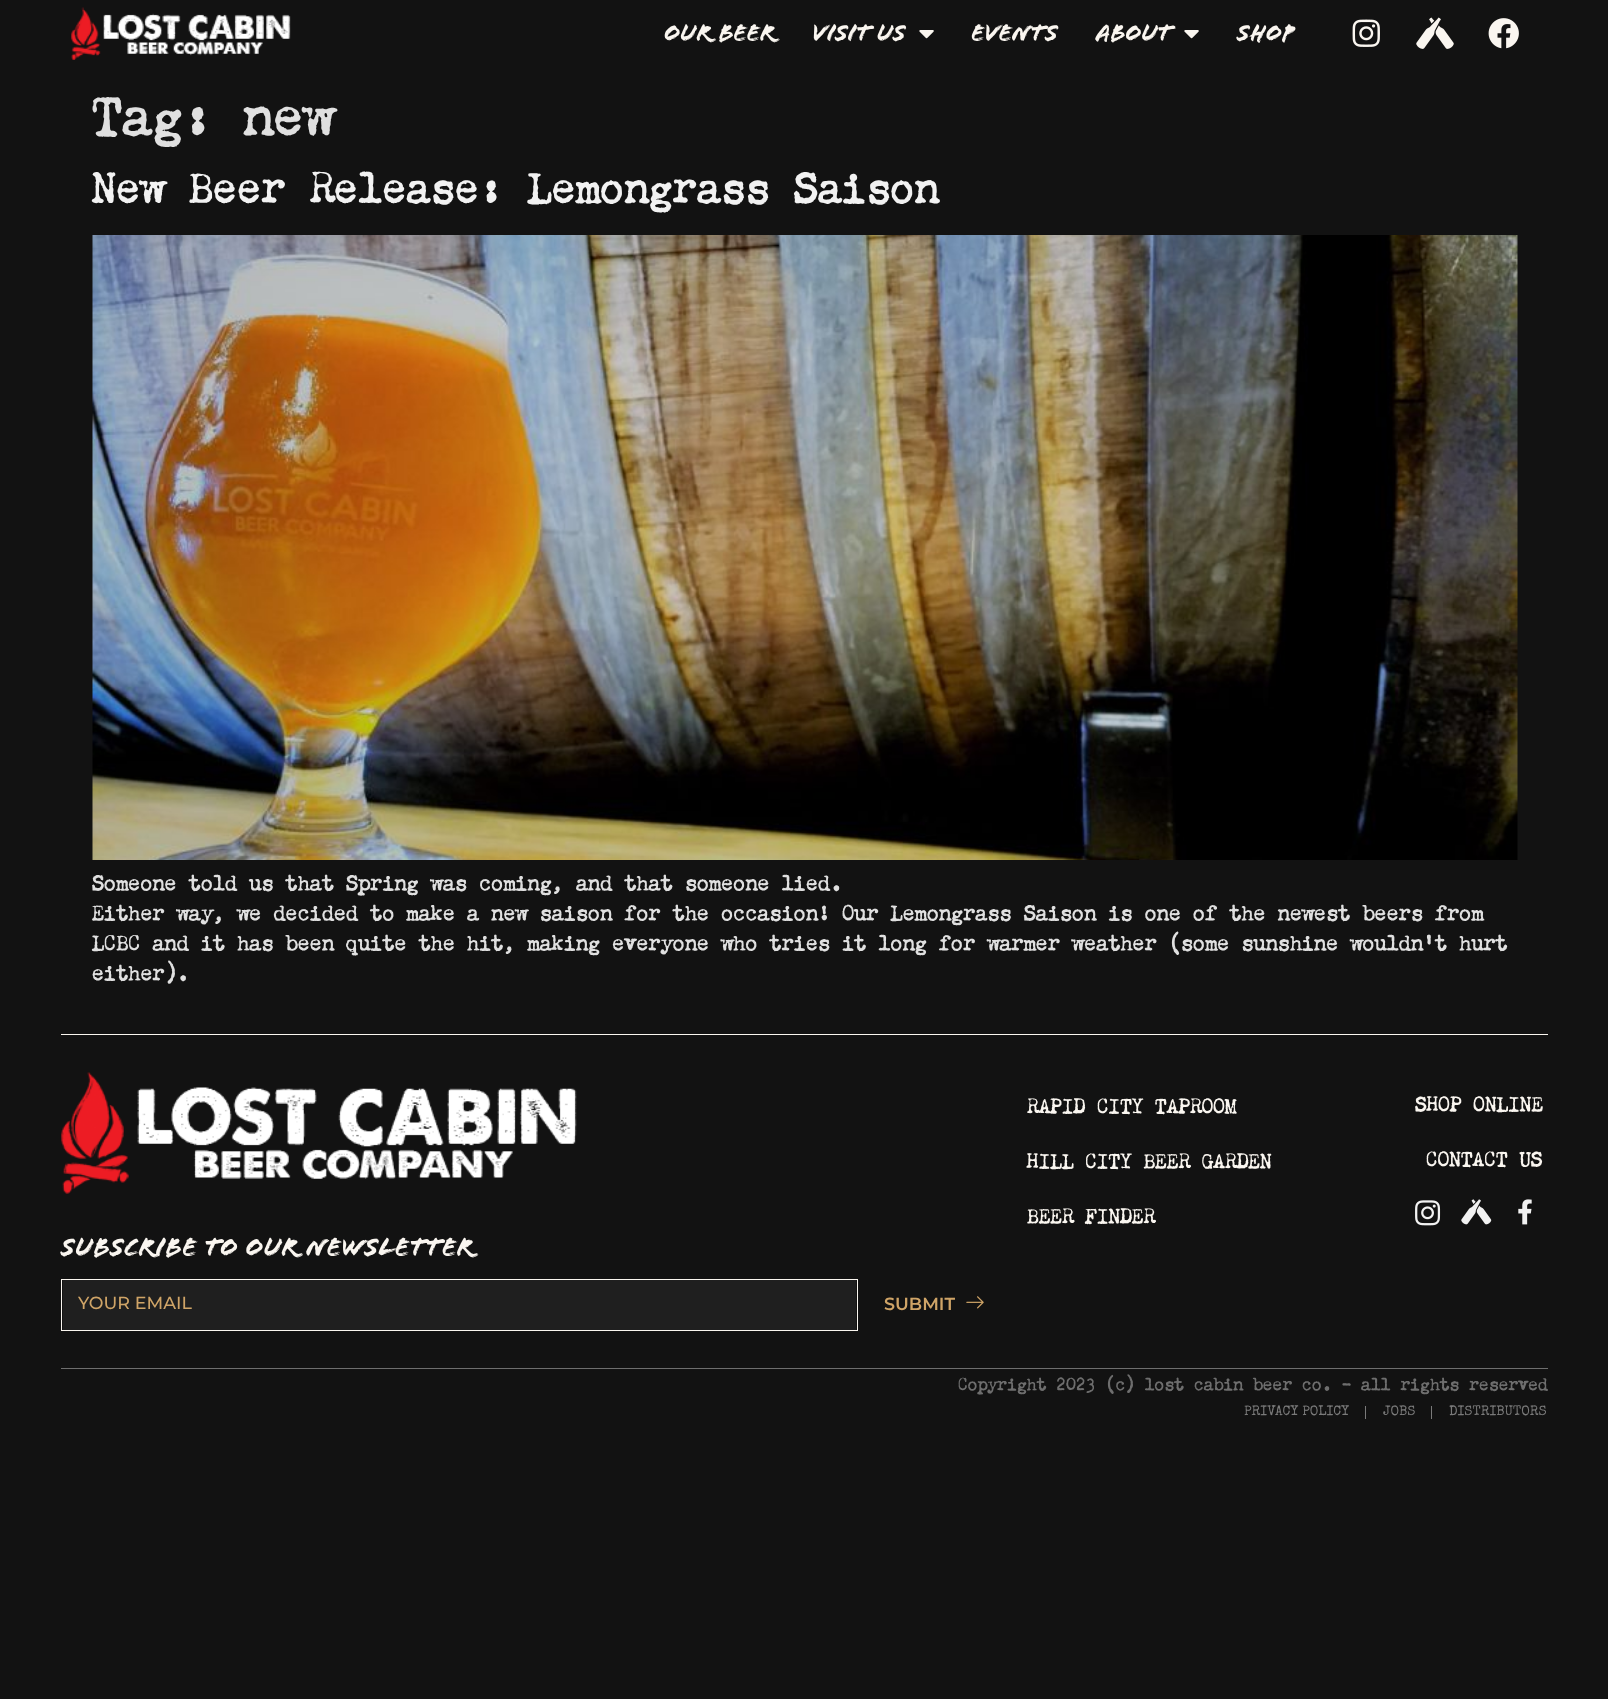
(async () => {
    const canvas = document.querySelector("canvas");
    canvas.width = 1608;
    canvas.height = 1699;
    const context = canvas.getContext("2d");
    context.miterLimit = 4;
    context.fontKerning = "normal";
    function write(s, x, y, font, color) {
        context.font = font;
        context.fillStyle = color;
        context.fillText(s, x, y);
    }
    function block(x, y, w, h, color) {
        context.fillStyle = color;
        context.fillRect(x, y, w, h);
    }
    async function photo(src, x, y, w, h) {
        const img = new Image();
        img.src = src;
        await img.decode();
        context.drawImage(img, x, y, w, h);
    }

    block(0, 0, 1608, 1699, "rgb(18, 18, 18)");
    await photo("media/1.png", 71, 7, 220, 53);
    context.letterSpacing = "-0.25px";
    write("Our Beer", 664, 40, "25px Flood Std", "rgb(250, 246, 240)");
    write("Visit Us", 812, 40, "25px Flood Std", "rgb(250, 246, 240)");
    await photo("media/2.png", 919, 30, 15, 9);
    write("Events", 971, 40, "25px Flood Std", "rgb(250, 246, 240)");
    write("About", 1096, 40, "25px Flood Std", "rgb(250, 246, 240)");
    await photo("media/2.png", 1184, 30, 15, 9);
    write("Shop", 1237, 40, "25px Flood Std", "rgb(250, 246, 240)");
    await photo("media/3.png", 1352, 19, 28, 28);
    await photo("media/4.png", 1416, 17, 38, 32);
    await photo("media/5.png", 1488, 18, 31, 31);
    context.letterSpacing = "0px";
    write("Tag: new", 92, 134, "500 50px 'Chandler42'", "rgb(224, 224, 224)");
    write("New Beer Release: Lemongrass Saison", 92, 202, "500 40px 'Chandler42'", "rgb(242, 242, 242)");
    await photo("media/6.png", 92, 235, 1426, 625);
    write("Someone told us that Spring was coming, and that someone lied.", 92, 890, "500 20px 'Chandler42'", "rgb(224, 224, 224)");
    write("Either way, we decided to make a new saison for the occasion! Our Lemongrass Saison is one of the newest beers from", 92, 920, "500 20px 'Chandler42'", "rgb(224, 224, 224)");
    write("LCBC and it has been quite the hit, making everyone who tries it long for warmer weather (some sunshine wouldn’t hurt", 92, 950, "500 20px 'Chandler42'", "rgb(224, 224, 224)");
    write("either).", 92, 980, "500 20px 'Chandler42'", "rgb(224, 224, 224)");
    block(61, 1034, 1487, 1, "rgb(250, 246, 240)");
    write("RAPID CITY TAPROOM", 1027, 1113, "500 19.25px 'Chandler42'", "rgb(250, 246, 240)");
    write("HILL CITY BEER GARDEN", 1027, 1168, "500 19.25px 'Chandler42'", "rgb(250, 246, 240)");
    write("BEER FINDER", 1027, 1223, "500 19.25px 'Chandler42'", "rgb(250, 246, 240)");
    write("SHOP ONLINE", 1415, 1111, "500 19.25px 'Chandler42'", "rgb(250, 246, 240)");
    write("CONTACT US", 1426, 1166, "500 19.25px 'Chandler42'", "rgb(250, 246, 240)");
    await photo("media/7.png", 1415, 1200, 26, 26);
    await photo("media/8.png", 1461, 1199, 31, 26);
    await photo("media/9.png", 1518, 1199, 14, 26);
    await photo("media/10.png", 61, 1072, 516, 122);
    write("SUBSCRIBE TO OUR NEWSLETTER", 61, 1255, "27.4px Flood Std", "rgb(250, 246, 240)");
    block(63, 1280, 793, 50, "rgb(31, 31, 31)");
    context.strokeStyle = "rgb(250, 246, 240)";
    context.strokeRect(61.5, 1279.5, 796, 51);
    write("YOUR EMAIL", 78, 1309, "500 17.5px Montserrat", "rgb(207, 164, 103)");
    write("SUBMIT", 884, 1310, "600 17.5px Montserrat", "rgb(207, 164, 103)");
    await photo("media/11.png", 966, 1296, 18, 13);
    block(61, 1368, 1487, 1, "rgb(110, 110, 110)");
    write("Copyright 2023 © lost cabin beer co. - all rights reserved", 958, 1390, "500 16.25px 'Chandler42'", "rgb(110, 110, 110)");
    write("PRIVACY POLICY", 1244, 1415, "13.75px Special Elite", "rgb(122, 122, 122)");
    block(1365, 1406, 1, 13, "rgb(122, 122, 122)");
    write("JOBS", 1383, 1415, "13.75px Special Elite", "rgb(122, 122, 122)");
    block(1431, 1406, 1, 13, "rgb(122, 122, 122)");
    write("DISTRIBUTORS", 1449, 1415, "13.75px Special Elite", "rgb(122, 122, 122)");
})();
